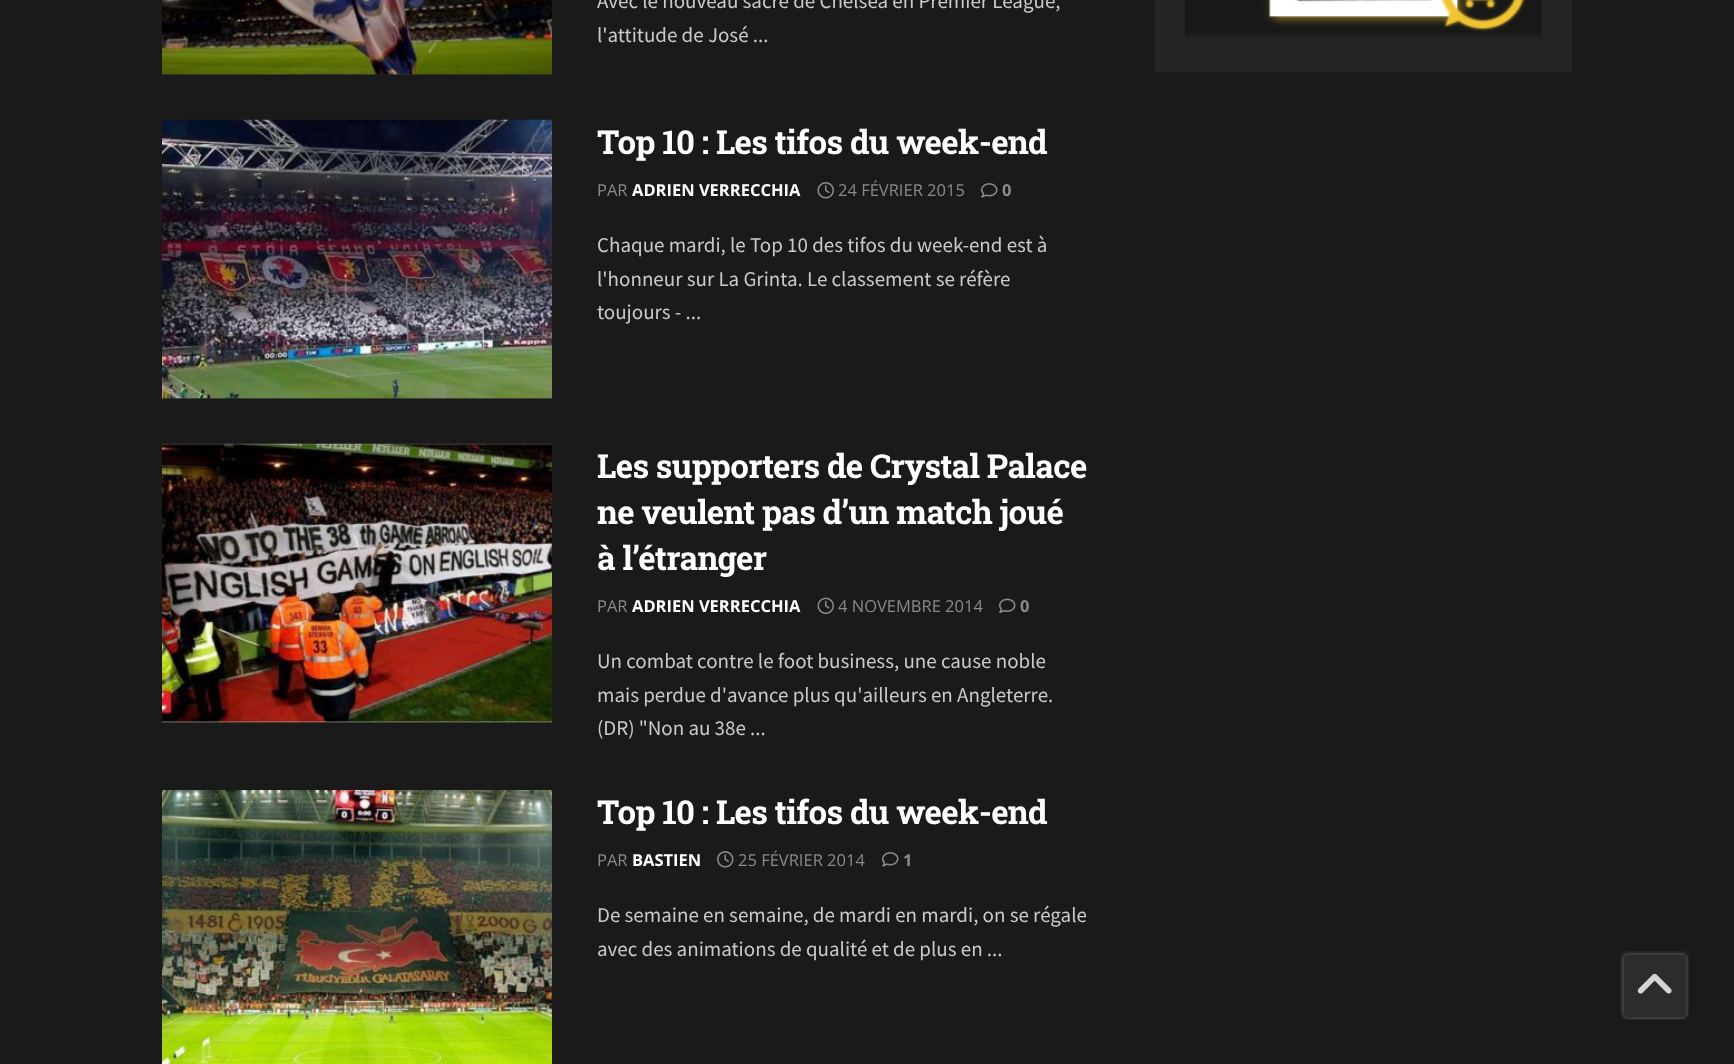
(async () => {
    const canvas = document.querySelector("canvas");
    canvas.width = 1734;
    canvas.height = 1064;
    const context = canvas.getContext("2d");
    context.miterLimit = 4;
    context.fontKerning = "normal";
    function write(s, x, y, font, color) {
        context.font = font;
        context.fillStyle = color;
        context.fillText(s, x, y);
    }
    function block(x, y, w, h, color) {
        context.fillStyle = color;
        context.fillRect(x, y, w, h);
    }
    function card(x, y, w, h, r, color) {
        context.fillStyle = color;
        context.beginPath();
        context.roundRect(x, y, w, h, r);
        context.fill();
    }
    async function photo(src, x, y, w, h) {
        const img = new Image();
        img.src = src;
        await img.decode();
        context.drawImage(img, x, y, w, h);
    }

    block(0, 0, 1734, 1064, "rgb(26, 26, 26)");
    block(162, 74, 390, 1, "rgb(40, 40, 40)");
    await photo("media/1.png", 162, 0, 390, 75);
    write("Avec le nouveau sacre de Chelsea en Premier League,", 597, 8, "21px Source Sans Pro", "rgb(202, 202, 202)");
    write("l'attitude de José ...", 597, 42, "21px Source Sans Pro", "rgb(202, 202, 202)");
    block(162, 398, 390, 1, "rgb(40, 40, 40)");
    await photo("media/2.png", 162, 119, 390, 280);
    context.letterSpacing = "-0.65px";
    write("Top 10 : Les tifos du week-end", 597, 154, "bold 33px Roboto Slab", "rgb(255, 255, 255)");
    context.letterSpacing = "0px";
    write("PAR", 597, 196, "16.5px Open Sans", "rgb(139, 139, 139)");
    write("ADRIEN VERRECCHIA", 632, 196, "bold 16.5px Open Sans", "rgb(255, 255, 255)");
    await photo("media/3.png", 817, 182, 17, 17);
    write("24 FÉVRIER 2015", 838, 196, "16.5px Open Sans", "rgb(139, 139, 139)");
    await photo("media/4.png", 981, 183, 17, 15);
    write("0", 1002, 196, "bold 16.5px Open Sans", "rgb(139, 139, 139)");
    write("Chaque mardi, le Top 10 des tifos du week-end est à", 597, 252, "21px Source Sans Pro", "rgb(202, 202, 202)");
    write("l'honneur sur La Grinta. Le classement se réfère", 597, 286, "21px Source Sans Pro", "rgb(202, 202, 202)");
    write("toujours - ...", 597, 319, "21px Source Sans Pro", "rgb(202, 202, 202)");
    block(162, 722, 390, 1, "rgb(40, 40, 40)");
    await photo("media/5.png", 162, 443, 390, 280);
    context.letterSpacing = "-0.65px";
    write("Les supporters de Crystal Palace", 597, 478, "bold 33px Roboto Slab", "rgb(255, 255, 255)");
    write("ne veulent pas d’un match joué", 597, 524, "bold 33px Roboto Slab", "rgb(255, 255, 255)");
    write("à l’étranger", 597, 570, "bold 33px Roboto Slab", "rgb(255, 255, 255)");
    context.letterSpacing = "0px";
    write("PAR", 597, 612, "16.5px Open Sans", "rgb(139, 139, 139)");
    write("ADRIEN VERRECCHIA", 632, 612, "bold 16.5px Open Sans", "rgb(255, 255, 255)");
    await photo("media/6.png", 817, 597, 17, 17);
    write("4 NOVEMBRE 2014", 838, 612, "16.5px Open Sans", "rgb(139, 139, 139)");
    await photo("media/7.png", 999, 598, 17, 15);
    write("0", 1020, 612, "bold 16.5px Open Sans", "rgb(139, 139, 139)");
    write("Un combat contre le foot business, une cause noble", 597, 668, "21px Source Sans Pro", "rgb(202, 202, 202)");
    write("mais perdue d'avance plus qu'ailleurs en Angleterre.", 597, 702, "21px Source Sans Pro", "rgb(202, 202, 202)");
    write("(DR) \"Non au 38e ...", 597, 735, "21px Source Sans Pro", "rgb(202, 202, 202)");
    await photo("media/8.png", 162, 790, 390, 274);
    context.letterSpacing = "-0.65px";
    write("Top 10 : Les tifos du week-end", 597, 824, "bold 33px Roboto Slab", "rgb(255, 255, 255)");
    context.letterSpacing = "0px";
    write("PAR", 597, 866, "16.5px Open Sans", "rgb(139, 139, 139)");
    write("BASTIEN", 632, 866, "bold 16.5px Open Sans", "rgb(255, 255, 255)");
    await photo("media/9.png", 717, 851, 17, 17);
    write("25 FÉVRIER 2014", 738, 866, "16.5px Open Sans", "rgb(139, 139, 139)");
    await photo("media/4.png", 882, 852, 17, 15);
    write("1", 903, 866, "bold 16.5px Open Sans", "rgb(139, 139, 139)");
    write("De semaine en semaine, de mardi en mardi, on se régale", 597, 922, "21px Source Sans Pro", "rgb(202, 202, 202)");
    write("avec des animations de qualité et de plus en ...", 597, 956, "21px Source Sans Pro", "rgb(202, 202, 202)");
    block(1155, 0, 417, 72, "rgb(36, 36, 36)");
    await photo("media/10.png", 1185, 0, 357, 38);
    card(1620, 951, 69, 69, 8, "rgb(44, 44, 44)");
    context.beginPath();
    context.roundRect(1623, 954, 64, 64, 5);
    context.strokeStyle = "rgb(61, 61, 61)";
    context.lineWidth = 2;
    context.stroke();
    context.beginPath();
    context.roundRect(1621, 952, 67, 67, 7);
    context.strokeStyle = "rgba(5, 5, 5, 0.11)";
    context.stroke();
    await photo("media/11.png", 1637, 973, 35, 21);
})();
